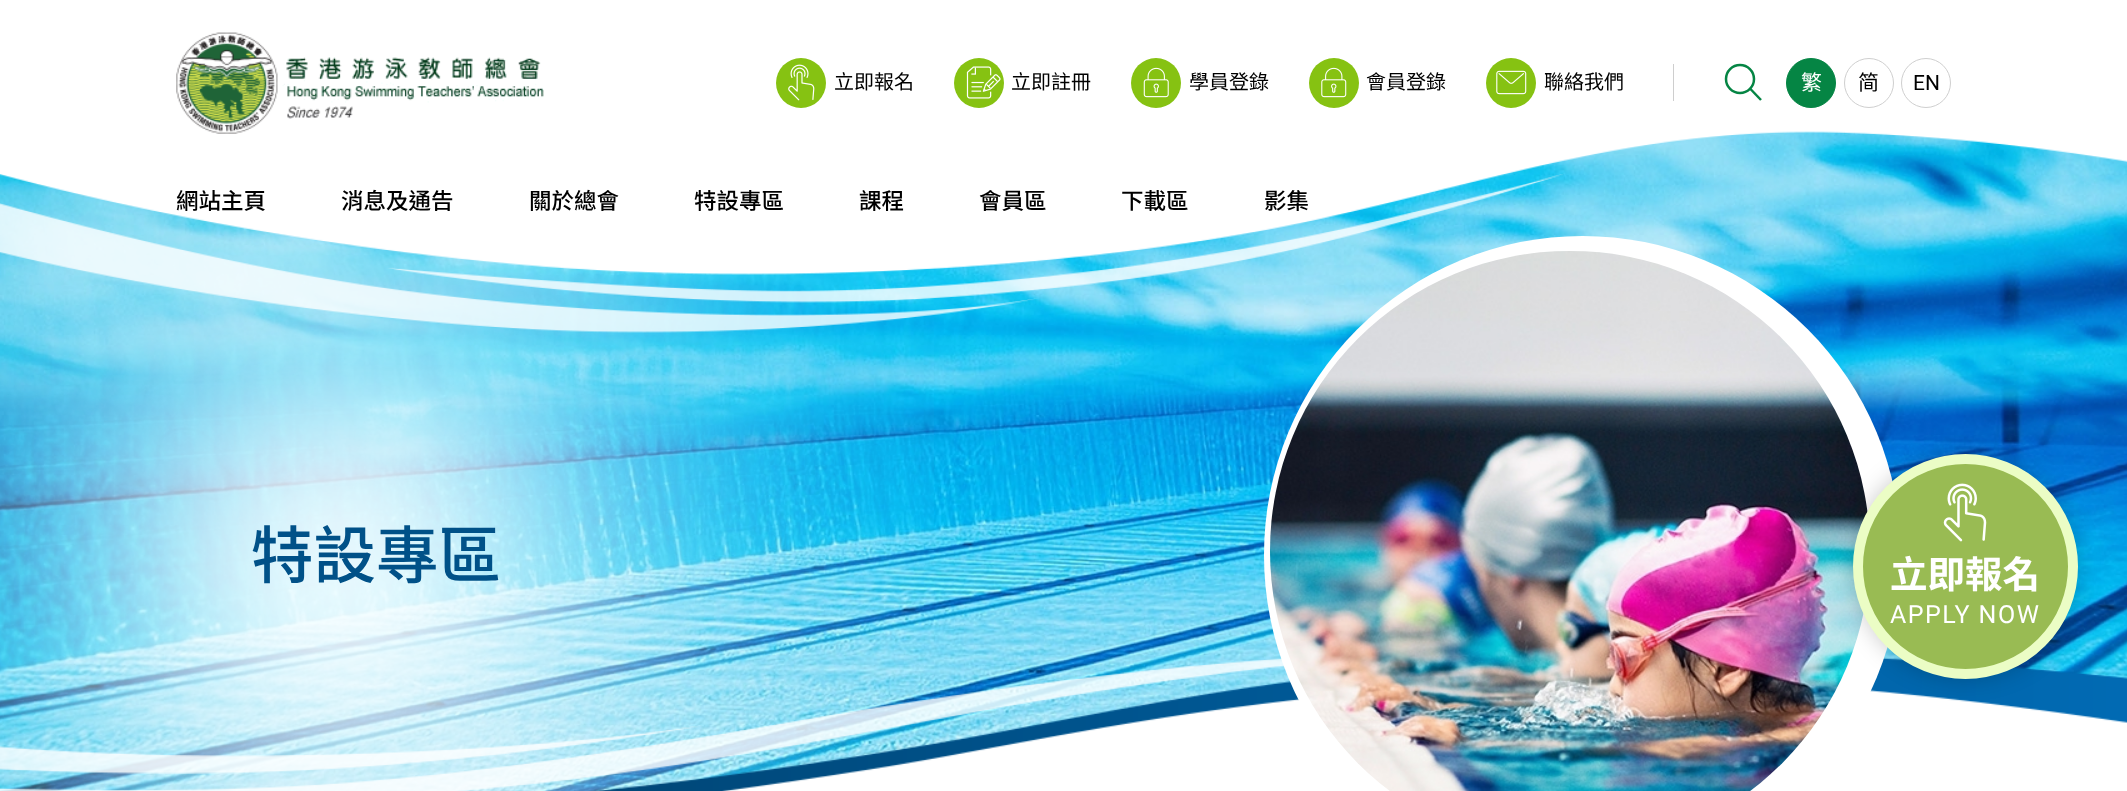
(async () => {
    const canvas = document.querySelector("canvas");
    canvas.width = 2127;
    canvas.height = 791;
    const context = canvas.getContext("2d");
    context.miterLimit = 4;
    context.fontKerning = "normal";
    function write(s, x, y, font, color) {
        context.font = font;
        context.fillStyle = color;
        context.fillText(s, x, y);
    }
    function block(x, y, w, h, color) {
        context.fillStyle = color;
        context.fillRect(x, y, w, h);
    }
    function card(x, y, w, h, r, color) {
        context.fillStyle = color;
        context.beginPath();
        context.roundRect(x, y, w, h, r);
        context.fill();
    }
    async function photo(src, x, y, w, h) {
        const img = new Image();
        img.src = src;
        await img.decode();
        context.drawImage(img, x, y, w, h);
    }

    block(0, 0, 2127, 791, "rgb(255, 255, 255)");
    await photo("media/8.png", 0, 131, 2127, 660);
    await photo("media/9.png", 0, 174, 934, 617);
    await photo("media/11.png", 0, 657, 2127, 134);
    card(1264, 236, 637, 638, 318.5, "rgb(255, 255, 255)");
    await photo("media/10.png", 1270, 251, 598, 540);
    await photo("media/7.png", 0, 126, 2127, 207);
    await photo("media/1.png", 176, 32, 368, 102);
    context.fillStyle = "rgb(134, 194, 18)";
    context.beginPath();
    context.arc(801, 83, 25, 0, Math.PI * 2);
    context.fill();
    await photo("media/2.png", 788, 64, 27, 37);
    write("立即報名", 834, 89, "20px Noto Sans TC", "rgb(0, 0, 0)");
    context.fillStyle = "rgb(134, 194, 18)";
    context.beginPath();
    context.arc(979, 83, 25, 0, Math.PI * 2);
    context.fill();
    await photo("media/3.png", 966, 66, 35, 33);
    write("立即註冊", 1011, 89, "20px Noto Sans TC", "rgb(0, 0, 0)");
    context.fillStyle = "rgb(134, 194, 18)";
    context.beginPath();
    context.arc(1156, 83, 25, 0, Math.PI * 2);
    context.fill();
    await photo("media/4.png", 1143, 67, 26, 31);
    write("學員登錄", 1189, 89, "20px Noto Sans TC", "rgb(0, 0, 0)");
    context.fillStyle = "rgb(134, 194, 18)";
    context.beginPath();
    context.arc(1334, 83, 25, 0, Math.PI * 2);
    context.fill();
    await photo("media/5.png", 1321, 67, 26, 31);
    write("會員登錄", 1366, 89, "20px Noto Sans TC", "rgb(0, 0, 0)");
    context.fillStyle = "rgb(134, 194, 18)";
    context.beginPath();
    context.arc(1511, 83, 25, 0, Math.PI * 2);
    context.fill();
    await photo("media/6.png", 1496, 70, 31, 25);
    write("聯絡我們", 1544, 89, "20px Noto Sans TC", "rgb(0, 0, 0)");
    block(1673, 64, 1, 37, "rgb(206, 206, 206)");
    context.beginPath();
    context.arc(1740, 79, 14, 0, Math.PI * 2);
    context.strokeStyle = "rgb(5, 133, 68)";
    context.lineWidth = 2.5;
    context.stroke();
    context.beginPath();
    context.moveTo(1750, 88.5);
    context.lineTo(1761, 100);
    context.stroke();
    context.fillStyle = "rgb(5, 133, 68)";
    context.beginPath();
    context.arc(1811, 83, 24.5, 0, Math.PI * 2);
    context.fill();
    context.lineWidth = 1;
    context.stroke();
    write("繁", 1801, 90, "21px Noto Sans TC", "rgb(255, 255, 255)");
    context.beginPath();
    context.arc(1869, 83, 24.5, 0, Math.PI * 2);
    context.strokeStyle = "rgb(207, 207, 207)";
    context.stroke();
    write("简", 1858, 90, "21px Noto Sans SC", "rgb(0, 0, 0)");
    context.beginPath();
    context.arc(1926, 83, 24.5, 0, Math.PI * 2);
    context.stroke();
    write("EN", 1913, 90, "21px Roboto", "rgb(0, 0, 0)");
    write("網站主頁", 176, 209, "500 22.5px Noto Sans TC", "rgb(0, 0, 0)");
    write("消息及通告", 341, 209, "500 22.5px Noto Sans TC", "rgb(0, 0, 0)");
    write("關於總會", 529, 209, "500 22.5px Noto Sans TC", "rgb(0, 0, 0)");
    write("特設專區", 694, 209, "500 22.5px Noto Sans TC", "rgb(0, 0, 0)");
    write("課程", 859, 209, "500 22.5px Noto Sans TC", "rgb(0, 0, 0)");
    write("會員區", 979, 209, "500 22.5px Noto Sans TC", "rgb(0, 0, 0)");
    write("下載區", 1121, 209, "500 22.5px Noto Sans TC", "rgb(0, 0, 0)");
    write("影集", 1264, 209, "500 22.5px Noto Sans TC", "rgb(0, 0, 0)");
    write("特設專區", 251, 578, "500 62.5px Noto Sans TC", "rgb(0, 81, 136)");
    context.fillStyle = "rgba(0, 0, 0, 0.2)";
    context.filter = "blur(11px)";
    context.beginPath();
    context.roundRect(1853, 454, 225, 225, 112.5);
    context.fill();
    context.filter = "none";
    context.fillStyle = "rgb(153, 187, 83)";
    context.beginPath();
    context.arc(1965.5, 566.5, 107.5, 0, Math.PI * 2);
    context.fill();
    context.strokeStyle = "rgb(235, 253, 197)";
    context.lineWidth = 10;
    context.stroke();
    await photo("media/12.png", 1943, 483, 44, 59);
    write("立即報名", 1890, 588, "bold 37.5px Noto Sans TC", "rgb(255, 255, 255)");
    context.letterSpacing = "1.5px";
    write("APPLY NOW", 1890, 623, "25px Roboto", "rgb(255, 255, 255)");
})();
